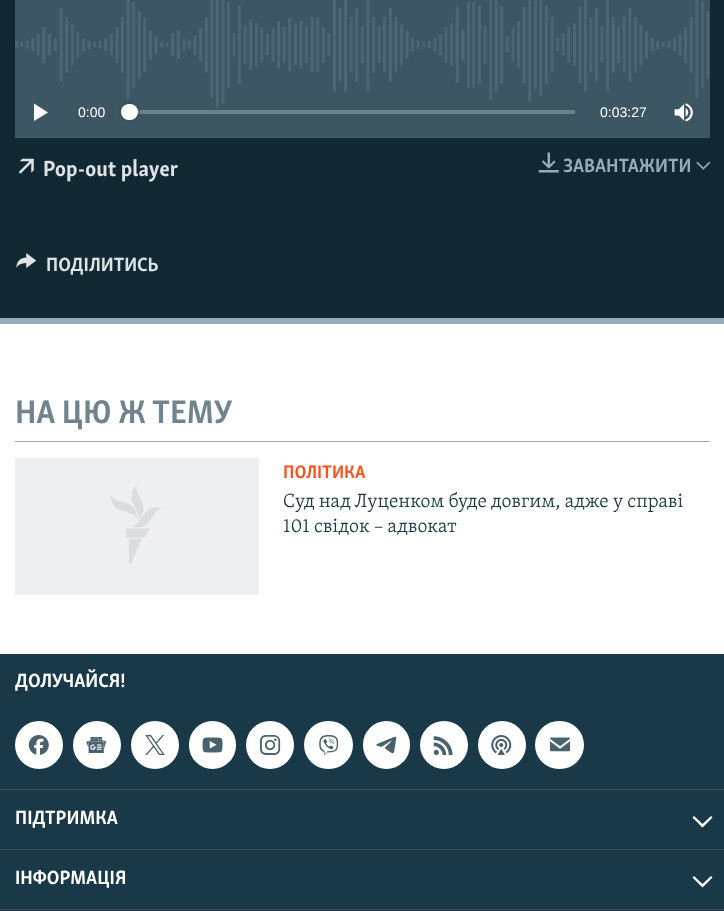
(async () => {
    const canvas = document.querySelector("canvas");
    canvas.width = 724;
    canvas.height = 911;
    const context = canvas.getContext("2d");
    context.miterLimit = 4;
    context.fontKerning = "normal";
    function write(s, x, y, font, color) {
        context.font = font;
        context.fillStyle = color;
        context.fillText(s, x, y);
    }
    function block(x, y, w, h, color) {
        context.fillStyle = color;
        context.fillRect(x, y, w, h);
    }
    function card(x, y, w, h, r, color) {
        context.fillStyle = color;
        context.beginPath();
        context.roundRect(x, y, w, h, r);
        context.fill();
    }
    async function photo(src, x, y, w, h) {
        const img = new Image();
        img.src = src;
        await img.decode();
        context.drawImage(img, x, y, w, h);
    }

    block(0, 0, 724, 911, "rgb(255, 255, 255)");
    block(0, 0, 724, 318, "rgb(18, 40, 50)");
    block(0, 318, 724, 6, "rgb(149, 173, 185)");
    block(15, 0, 695, 138, "rgb(60, 87, 99)");
    await photo("media/1.png", 15, 0, 695, 108);
    context.fillStyle = "rgb(255, 255, 255)";
    context.beginPath();
    context.moveTo(34, 121);
    context.lineTo(48, 112.5);
    context.lineTo(34, 103.5);
    context.closePath();
    context.fill();
    write("0:00", 78, 117, "14px Liberation Sans", "rgb(255, 255, 255)");
    block(129, 110, 446, 4, "rgb(109, 129, 138)");
    context.fillStyle = "rgb(65, 65, 68)";
    context.filter = "blur(2px)";
    context.beginPath();
    context.roundRect(121, 104, 17, 16, 8);
    context.fill();
    context.filter = "none";
    card(121, 104, 17, 16, 8, "rgb(255, 255, 255)");
    write("0:03:27", 600, 117, "14px Liberation Sans", "rgb(255, 255, 255)");
    await photo("media/2.png", 674, 103, 19, 19);
    await photo("media/3.png", 18, 158, 16, 16);
    write("Pop-out player", 43, 176, "bold 22.5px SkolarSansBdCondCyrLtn", "rgb(220, 228, 232)");
    await photo("media/4.png", 538, 152, 21, 21);
    write("ЗАВАНТАЖИТИ", 563, 172, "bold 19.7px SkolarSansBdCondCyrLtn", "rgb(149, 173, 185)");
    await photo("media/5.png", 696, 161, 15, 9);
    await photo("media/6.png", 16, 253, 21, 15);
    write("ПОДІЛИТИСЬ", 46, 271, "bold 19.7px SkolarSansBdCondCyrLtn", "rgb(220, 228, 232)");
    block(15, 441, 695, 1, "rgb(149, 173, 185)");
    write("НА ЦЮ Ж ТЕМУ", 15, 423, "bold 33.75px SkolarSansBdCondCyrLtn", "rgb(113, 131, 141)");
    block(15, 458, 244, 137, "rgb(237, 239, 240)");
    await photo("media/7.png", 110, 485, 52, 79);
    write("ПОЛІТИКА", 283, 478, "bold 18.5px SkolarSansBdCondCyrLtn", "rgb(250, 84, 32)");
    write("Суд над Луценком буде довгим, адже у справі", 283, 507, "300 19.7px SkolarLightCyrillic", "rgb(26, 57, 72)");
    write("101 свідок – адвокат", 283, 532, "300 19.7px SkolarLightCyrillic", "rgb(26, 57, 72)");
    block(0, 654, 724, 257, "rgb(26, 57, 72)");
    block(0, 909, 724, 1, "rgb(62, 79, 87)");
    write("ДОЛУЧАЙСЯ!", 15, 687, "bold 19.7px SkolarSansBdCondCyrLtn", "rgb(255, 255, 255)");
    context.beginPath();
    context.arc(39, 745, 24, 0, Math.PI * 2);
    context.fill();
    await photo("media/8.png", 28, 735, 21, 20);
    context.beginPath();
    context.arc(97, 745, 24, 0, Math.PI * 2);
    context.fill();
    await photo("media/9.png", 86, 737, 21, 16);
    context.beginPath();
    context.arc(155, 745, 24, 0, Math.PI * 2);
    context.fill();
    await photo("media/10.png", 145, 735, 20, 20);
    card(189, 721, 47, 48, 23.5, "rgb(255, 255, 255)");
    await photo("media/11.png", 202, 737, 21, 16);
    context.beginPath();
    context.arc(270, 745, 24, 0, Math.PI * 2);
    context.fill();
    await photo("media/12.png", 260, 735, 21, 20);
    card(304, 721, 49, 48, 24, "rgb(255, 255, 255)");
    await photo("media/13.png", 319, 735, 20, 20);
    card(363, 721, 47, 48, 23.5, "rgb(255, 255, 255)");
    await photo("media/14.png", 376, 736, 21, 18);
    context.beginPath();
    context.arc(444, 745, 24, 0, Math.PI * 2);
    context.fill();
    await photo("media/15.png", 433, 736, 20, 19);
    context.beginPath();
    context.arc(502, 745, 24, 0, Math.PI * 2);
    context.fill();
    await photo("media/16.png", 491, 735, 21, 20);
    card(535, 721, 49, 48, 24, "rgb(255, 255, 255)");
    await photo("media/17.png", 550, 737, 20, 15);
    block(0, 789, 724, 1, "rgb(62, 79, 87)");
    write("ПІДТРИМКА", 15, 824, "bold 19.7px SkolarSansBdCondCyrLtn", "rgb(255, 255, 255)");
    context.beginPath();
    context.moveTo(692.5, 817.5);
    context.lineTo(702.5, 827.5);
    context.lineTo(712.5, 817.5);
    context.lineTo(711, 816);
    context.lineTo(702.5, 824);
    context.lineTo(694, 816);
    context.closePath();
    context.fill();
    block(0, 849, 724, 1, "rgb(62, 79, 87)");
    write("ІНФОРМАЦІЯ", 15, 884, "bold 19.7px SkolarSansBdCondCyrLtn", "rgb(255, 255, 255)");
    context.beginPath();
    context.moveTo(692.5, 877.5);
    context.lineTo(702.5, 887.5);
    context.lineTo(712.5, 877.5);
    context.lineTo(711, 876);
    context.lineTo(702.5, 884);
    context.lineTo(694, 876);
    context.closePath();
    context.fill();
})();
